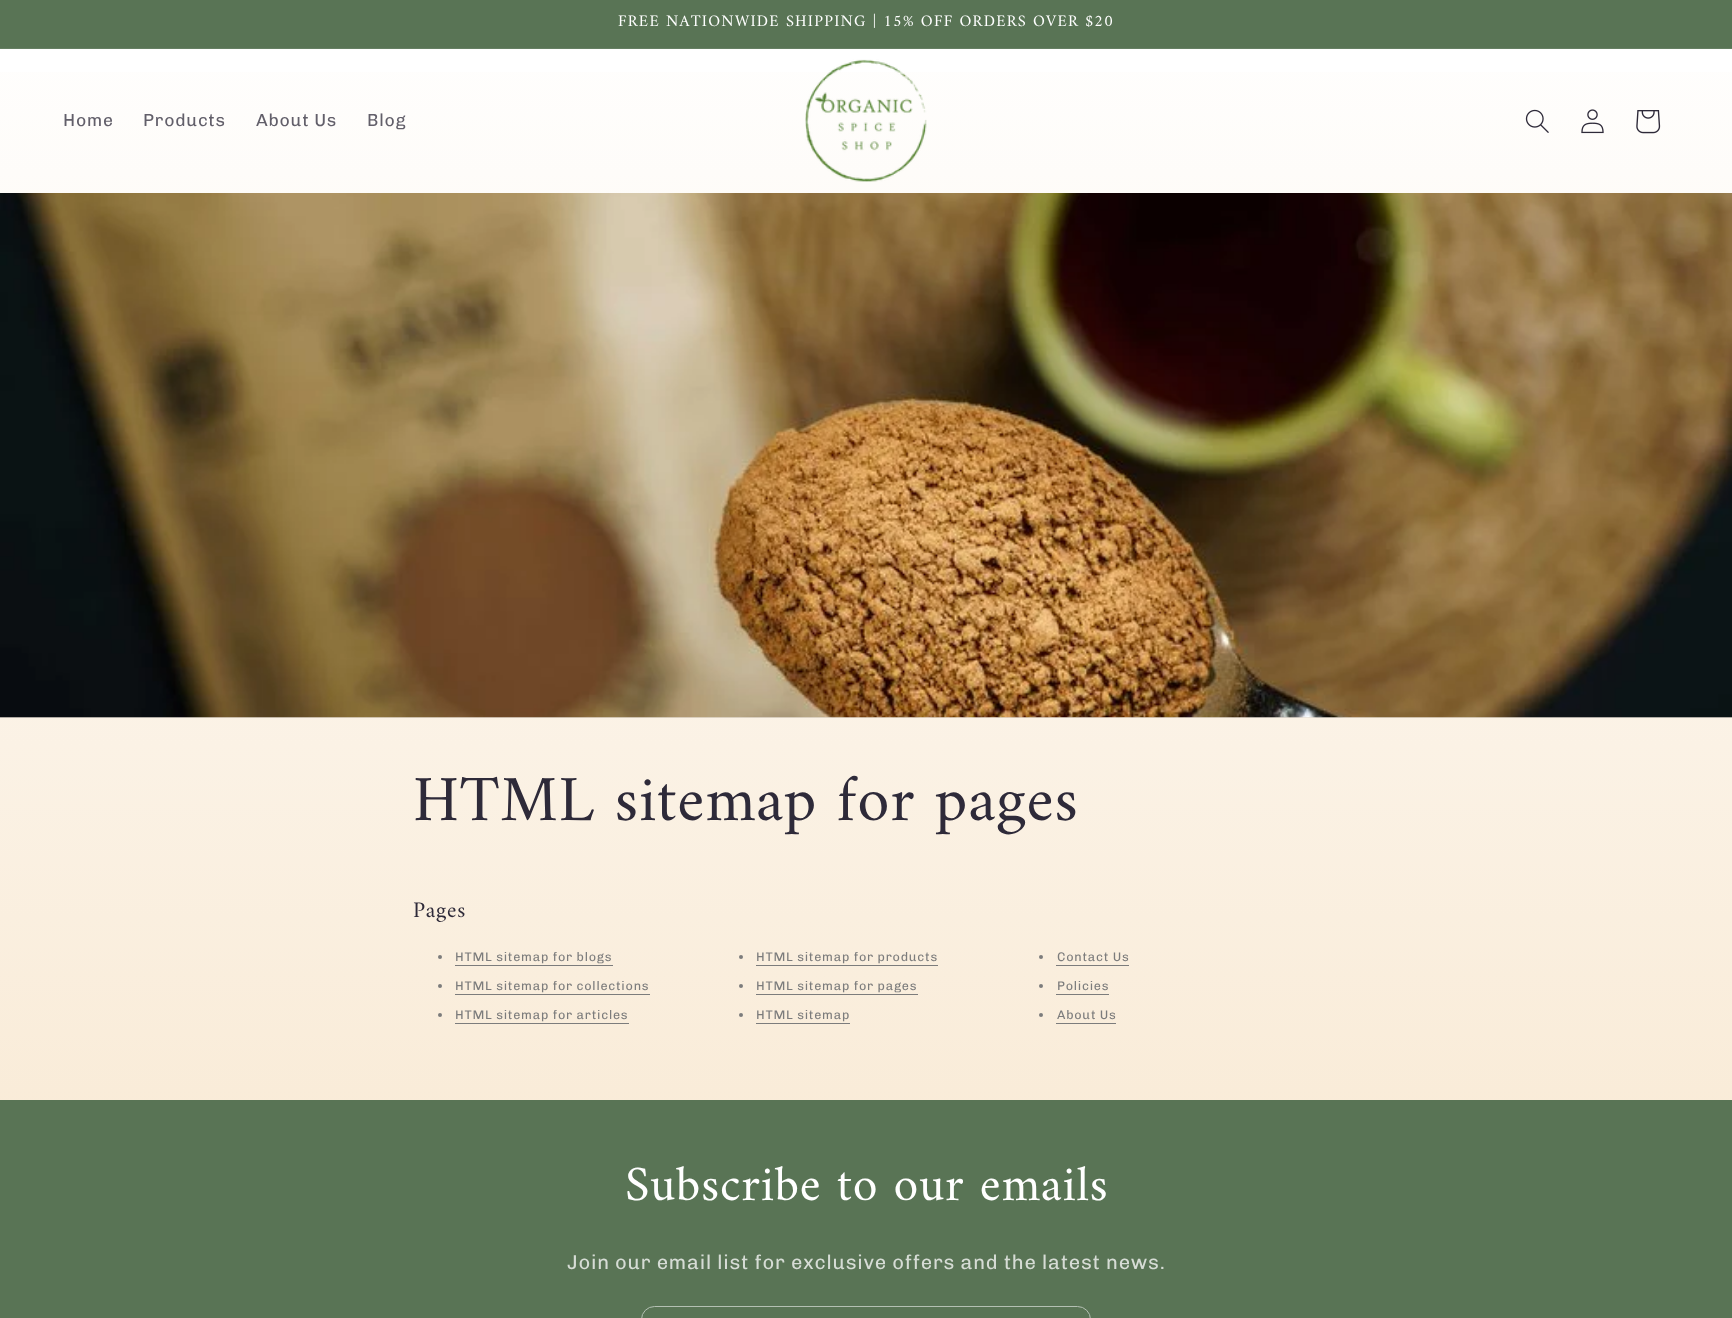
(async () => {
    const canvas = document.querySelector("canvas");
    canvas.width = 1732;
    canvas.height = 1318;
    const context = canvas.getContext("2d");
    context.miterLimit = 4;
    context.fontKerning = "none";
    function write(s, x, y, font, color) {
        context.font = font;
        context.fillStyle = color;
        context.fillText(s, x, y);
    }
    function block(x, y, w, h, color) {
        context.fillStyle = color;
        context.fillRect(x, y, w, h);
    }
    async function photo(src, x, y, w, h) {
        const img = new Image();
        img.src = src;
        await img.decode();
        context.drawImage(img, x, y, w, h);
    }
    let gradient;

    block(0, 0, 1732, 1318, "rgb(255, 255, 255)");
    gradient = context.createLinearGradient(866, 0, 866, 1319);
    gradient.addColorStop(0, "rgb(255, 255, 255)");
    gradient.addColorStop(1, "rgb(248, 232, 209)");
    context.fillStyle = gradient;
    context.fillRect(0, 718, 1732, 382);
    gradient = context.createLinearGradient(866, 0, 866, 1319);
    gradient.addColorStop(0, "rgb(234, 234, 235)");
    gradient.addColorStop(1, "rgb(228, 213, 194)");
    context.fillStyle = gradient;
    context.fillRect(0, 717, 1732, 1);
    block(0, 0, 1732, 48, "rgb(89, 116, 85)");
    block(0, 48, 1732, 1, "rgb(102, 127, 99)");
    context.letterSpacing = "1.25px";
    write("FREE NATIONWIDE SHIPPING | 15% OFF ORDERS OVER $20", 618, 26, "16.25px Amiri", "rgb(255, 255, 255)");
    gradient = context.createLinearGradient(866, 0, 866, 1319);
    gradient.addColorStop(0, "rgb(255, 255, 255)");
    gradient.addColorStop(1, "rgb(248, 232, 209)");
    context.fillStyle = gradient;
    context.fillRect(0, 72, 1732, 121);
    context.letterSpacing = "0.75px";
    write("Home", 63, 126, "17.5px Chivo", "rgb(98, 95, 106)");
    write("Products", 143, 126, "17.5px Chivo", "rgb(98, 95, 106)");
    write("About Us", 256, 126, "17.5px Chivo", "rgb(98, 95, 106)");
    write("Blog", 367, 126, "17.5px Chivo", "rgb(98, 95, 106)");
    await photo("media/1.png", 805, 59, 122, 123);
    await photo("media/2.png", 1525, 109, 24, 24);
    await photo("media/3.png", 1581, 109, 23, 25);
    await photo("media/4.png", 1636, 110, 25, 24);
    await photo("media/5.png", 0, 193, 1732, 525);
    write("HTML sitemap for pages", 413, 820, "65px Amiri", "rgb(46, 42, 57)");
    write("Pages", 413, 917, "22.5px Amiri", "rgb(46, 42, 57)");
    context.fillStyle = "rgb(124, 124, 124)";
    context.beginPath();
    context.arc(440, 957, 2, 0, Math.PI * 2);
    context.fill();
    write("HTML sitemap for blogs", 455, 961, "12.5px Chivo", "rgb(124, 124, 124)");
    block(455, 965, 158, 1, "rgb(124, 124, 124)");
    context.beginPath();
    context.arc(741, 957, 2, 0, Math.PI * 2);
    context.fill();
    write("HTML sitemap for products", 756, 961, "12.5px Chivo", "rgb(124, 124, 124)");
    block(756, 965, 182, 1, "rgb(124, 124, 124)");
    context.beginPath();
    context.arc(1041, 957, 2, 0, Math.PI * 2);
    context.fill();
    write("Contact Us", 1057, 961, "12.5px Chivo", "rgb(124, 124, 124)");
    block(1056, 965, 73, 1, "rgb(124, 124, 124)");
    context.beginPath();
    context.arc(440, 986, 2, 0, Math.PI * 2);
    context.fill();
    write("HTML sitemap for collections", 455, 990, "12.5px Chivo", "rgb(124, 124, 124)");
    block(455, 994, 195, 1, "rgb(124, 124, 124)");
    context.beginPath();
    context.arc(741, 986, 2, 0, Math.PI * 2);
    context.fill();
    write("HTML sitemap for pages", 756, 990, "12.5px Chivo", "rgb(124, 124, 124)");
    block(756, 994, 162, 1, "rgb(124, 124, 124)");
    context.beginPath();
    context.arc(1041, 986, 2, 0, Math.PI * 2);
    context.fill();
    write("Policies", 1057, 990, "12.5px Chivo", "rgb(124, 124, 124)");
    block(1056, 994, 53, 1, "rgb(124, 124, 124)");
    context.beginPath();
    context.arc(440, 1015, 2, 0, Math.PI * 2);
    context.fill();
    write("HTML sitemap for articles", 455, 1019, "12.5px Chivo", "rgb(124, 124, 124)");
    block(455, 1023, 174, 1, "rgb(124, 124, 124)");
    context.beginPath();
    context.arc(741, 1015, 2, 0, Math.PI * 2);
    context.fill();
    write("HTML sitemap", 756, 1019, "12.5px Chivo", "rgb(124, 124, 124)");
    block(756, 1023, 94, 1, "rgb(124, 124, 124)");
    context.beginPath();
    context.arc(1041, 1015, 2, 0, Math.PI * 2);
    context.fill();
    write("About Us", 1057, 1019, "12.5px Chivo", "rgb(124, 124, 124)");
    block(1056, 1023, 60, 1, "rgb(124, 124, 124)");
    block(0, 1100, 1732, 218, "rgb(89, 116, 85)");
    write("Subscribe to our emails", 625, 1200, "50px Amiri", "rgb(255, 255, 255)");
    write("Join our email list for exclusive offers and the latest news.", 567, 1269, "20px Chivo", "rgb(214, 220, 213)");
    context.beginPath();
    context.roundRect(641.5, 1306.5, 449, 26, 13.5);
    context.strokeStyle = "rgb(180, 192, 179)";
    context.stroke();
})();
